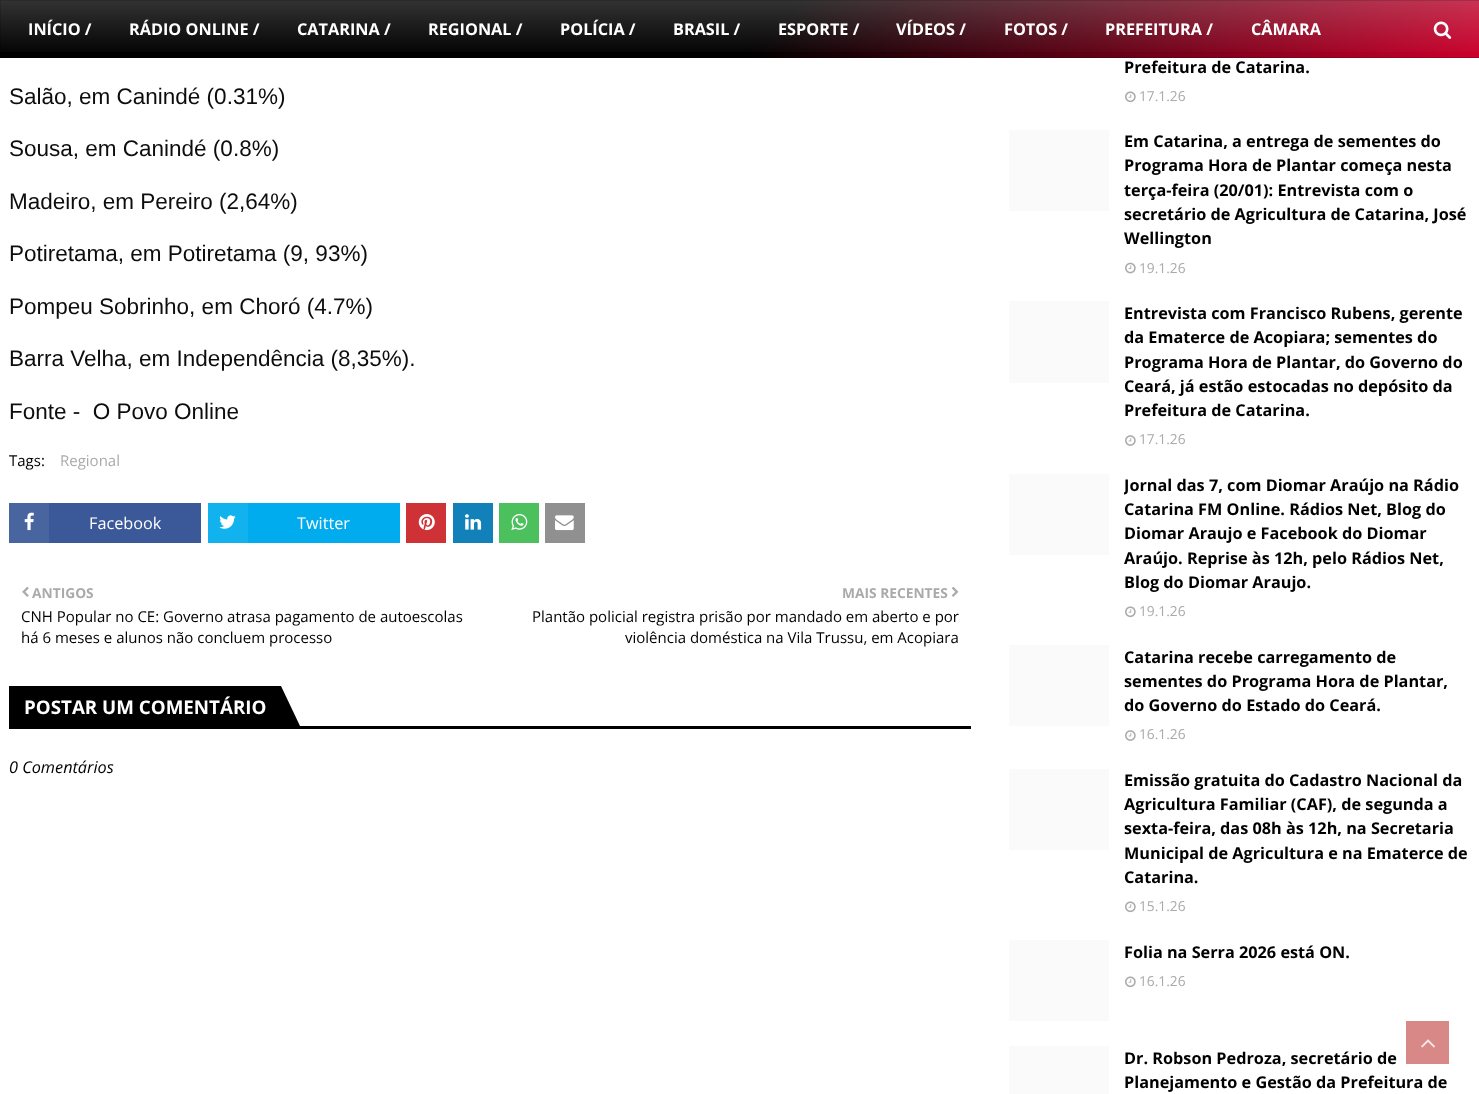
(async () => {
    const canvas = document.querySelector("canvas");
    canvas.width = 1479;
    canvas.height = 1094;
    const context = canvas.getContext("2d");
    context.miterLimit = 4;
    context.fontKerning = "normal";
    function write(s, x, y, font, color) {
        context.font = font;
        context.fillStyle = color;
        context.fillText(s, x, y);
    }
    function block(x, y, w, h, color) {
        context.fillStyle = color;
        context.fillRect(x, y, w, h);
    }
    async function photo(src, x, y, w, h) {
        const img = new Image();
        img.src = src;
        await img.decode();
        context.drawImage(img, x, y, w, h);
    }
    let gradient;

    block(0, 0, 1479, 1094, "rgb(255, 255, 255)");
    gradient = context.createLinearGradient(356, -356, 1124, 413);
    gradient.addColorStop(0.52, "rgb(0, 0, 0)");
    gradient.addColorStop(1, "rgb(203, 0, 43)");
    context.fillStyle = gradient;
    context.fillRect(0, 0, 1479, 58);
    gradient = context.createLinearGradient(740, 0, 740, 58);
    gradient.addColorStop(0, "rgba(255, 255, 255, 0.2)");
    gradient.addColorStop(1, "rgba(255, 255, 255, 0)");
    context.fillStyle = gradient;
    context.fillRect(0, 0, 1479, 52);
    context.strokeStyle = "rgba(0, 0, 0, 0.15)";
    context.strokeRect(0.5, 0.5, 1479, 57);
    write("INÍCIO /", 28, 35, "bold 16.25px Open Sans", "rgb(255, 255, 255)");
    write("RÁDIO ONLINE /", 129, 35, "bold 16.25px Open Sans", "rgb(255, 255, 255)");
    write("CATARINA /", 297, 35, "bold 16.25px Open Sans", "rgb(255, 255, 255)");
    write("REGIONAL /", 428, 35, "bold 16.25px Open Sans", "rgb(255, 255, 255)");
    write("POLÍCIA /", 560, 35, "bold 16.25px Open Sans", "rgb(255, 255, 255)");
    write("BRASIL /", 673, 35, "bold 16.25px Open Sans", "rgb(255, 255, 255)");
    write("ESPORTE /", 778, 35, "bold 16.25px Open Sans", "rgb(255, 255, 255)");
    write("VÍDEOS /", 896, 35, "bold 16.25px Open Sans", "rgb(255, 255, 255)");
    write("FOTOS /", 1004, 35, "bold 16.25px Open Sans", "rgb(255, 255, 255)");
    write("PREFEITURA /", 1105, 35, "bold 16.25px Open Sans", "rgb(255, 255, 255)");
    write("CÂMARA", 1251, 35, "bold 16.25px Open Sans", "rgb(255, 255, 255)");
    await photo("media/1.png", 1433, 21, 19, 18);
    write("Salão, em Canindé (0.31%)", 9, 104, "22.5px Liberation Sans", "rgb(13, 13, 13)");
    write("Sousa, em Canindé (0.8%)", 9, 156, "22.5px Liberation Sans", "rgb(13, 13, 13)");
    write("Madeiro, em Pereiro (2,64%)", 9, 209, "22.5px Liberation Sans", "rgb(13, 13, 13)");
    write("Potiretama, em Potiretama (9, 93%)", 9, 261, "22.5px Liberation Sans", "rgb(13, 13, 13)");
    write("Pompeu Sobrinho, em Choró (4.7%)", 9, 314, "22.5px Liberation Sans", "rgb(13, 13, 13)");
    write("Barra Velha, em Independência (8,35%).", 9, 366, "22.5px Liberation Sans", "rgb(13, 13, 13)");
    write("Fonte -  O Povo Online", 9, 419, "22.5px Liberation Sans", "rgb(13, 13, 13)");
    write("Tags:", 9, 466, "15px Open Sans", "rgb(0, 0, 0)");
    write("Regional", 60, 466, "15px Open Sans", "rgb(170, 170, 170)");
    block(49, 503, 152, 40, "rgb(59, 89, 153)");
    block(9, 503, 40, 40, "rgb(73, 101, 160)");
    await photo("media/2.png", 24, 512, 10, 19);
    write("Facebook", 89, 529, "16.25px Open Sans", "rgb(255, 255, 255)");
    block(248, 503, 152, 40, "rgb(0, 172, 238)");
    block(208, 503, 40, 40, "rgb(18, 178, 239)");
    await photo("media/3.png", 219, 515, 17, 14);
    write("Twitter", 297, 529, "16.25px Open Sans", "rgb(255, 255, 255)");
    block(406, 503, 40, 40, "rgb(206, 49, 54)");
    await photo("media/4.png", 418, 514, 17, 17);
    block(453, 503, 40, 40, "rgb(18, 129, 186)");
    await photo("media/5.png", 465, 514, 17, 16);
    block(499, 503, 40, 40, "rgb(76, 192, 92)");
    await photo("media/6.png", 511, 514, 17, 17);
    block(545, 503, 40, 40, "rgb(144, 144, 144)");
    await photo("media/7.png", 555, 515, 19, 16);
    await photo("media/8.png", 22, 586, 7, 11);
    write("ANTIGOS", 32, 598, "bold 13.75px Open Sans", "rgb(170, 170, 170)");
    write("CNH Popular no CE: Governo atrasa pagamento de autoescolas", 21, 622, "15px Open Sans", "rgb(0, 0, 0)");
    write("há 6 meses e alunos não concluem processo", 21, 643, "15px Open Sans", "rgb(0, 0, 0)");
    write("MAIS RECENTES", 842, 598, "bold 13.75px Open Sans", "rgb(170, 170, 170)");
    await photo("media/9.png", 951, 586, 8, 11);
    write("Plantão policial registra prisão por mandado em aberto e por", 532, 622, "15px Open Sans", "rgb(0, 0, 0)");
    write("violência doméstica na Vila Trussu, em Acopiara", 625, 643, "15px Open Sans", "rgb(0, 0, 0)");
    block(9, 726, 962, 3, "rgb(0, 0, 0)");
    block(9, 686, 272, 40, "rgb(0, 0, 0)");
    write("POSTAR UM COMENTÁRIO", 24, 714, "bold 18.75px Open Sans", "rgb(255, 255, 255)");
    context.fillStyle = "rgb(0, 0, 0)";
    context.beginPath();
    context.moveTo(281, 726);
    context.lineTo(281, 686);
    context.lineTo(300, 726);
    context.closePath();
    context.fill();
    write("0 Comentários", 9, 773, "italic 16.25px Open Sans", "rgb(0, 0, 0)");
    write("Prefeitura de Catarina.", 1124, 73, "bold 16.25px Open Sans", "rgb(0, 0, 0)");
    await photo("media/10.png", 1125, 91, 11, 12);
    write("17.1.26", 1139, 101, "13.75px Open Sans", "rgb(170, 170, 170)");
    block(1009, 130, 100, 81, "rgb(250, 250, 250)");
    write("Em Catarina, a entrega de sementes do", 1124, 147, "bold 16.25px Open Sans", "rgb(0, 0, 0)");
    write("Programa Hora de Plantar começa nesta", 1124, 171, "bold 16.25px Open Sans", "rgb(0, 0, 0)");
    write("terça-feira (20/01): Entrevista com o", 1124, 196, "bold 16.25px Open Sans", "rgb(0, 0, 0)");
    write("secretário de Agricultura de Catarina, José", 1124, 220, "bold 16.25px Open Sans", "rgb(0, 0, 0)");
    write("Wellington", 1124, 244, "bold 16.25px Open Sans", "rgb(0, 0, 0)");
    await photo("media/11.png", 1125, 262, 11, 12);
    write("19.1.26", 1139, 273, "13.75px Open Sans", "rgb(170, 170, 170)");
    block(1009, 301, 100, 82, "rgb(250, 250, 250)");
    write("Entrevista com Francisco Rubens, gerente", 1124, 319, "bold 16.25px Open Sans", "rgb(0, 0, 0)");
    write("da Ematerce de Acopiara; sementes do", 1124, 343, "bold 16.25px Open Sans", "rgb(0, 0, 0)");
    write("Programa Hora de Plantar, do Governo do", 1124, 368, "bold 16.25px Open Sans", "rgb(0, 0, 0)");
    write("Ceará, já estão estocadas no depósito da", 1124, 392, "bold 16.25px Open Sans", "rgb(0, 0, 0)");
    write("Prefeitura de Catarina.", 1124, 416, "bold 16.25px Open Sans", "rgb(0, 0, 0)");
    await photo("media/12.png", 1125, 435, 11, 11);
    write("17.1.26", 1139, 444, "13.75px Open Sans", "rgb(170, 170, 170)");
    block(1009, 474, 100, 81, "rgb(250, 250, 250)");
    context.save();
    context.beginPath();
    context.rect(1124, 474, 347, 146);
    context.clip();
    write("Jornal das 7, com Diomar Araújo na Rádio", 1124, 491, "bold 16.25px Open Sans", "rgb(0, 0, 0)");
    context.restore();
    write("Catarina FM Online. Rádios Net, Blog do", 1124, 515, "bold 16.25px Open Sans", "rgb(0, 0, 0)");
    write("Diomar Araujo e Facebook do Diomar", 1124, 539, "bold 16.25px Open Sans", "rgb(0, 0, 0)");
    write("Araújo. Reprise às 12h, pelo Rádios Net,", 1124, 564, "bold 16.25px Open Sans", "rgb(0, 0, 0)");
    write("Blog do Diomar Araujo.", 1124, 588, "bold 16.25px Open Sans", "rgb(0, 0, 0)");
    await photo("media/10.png", 1125, 606, 11, 12);
    write("19.1.26", 1139, 616, "13.75px Open Sans", "rgb(170, 170, 170)");
    block(1009, 645, 100, 81, "rgb(250, 250, 250)");
    write("Catarina recebe carregamento de", 1124, 663, "bold 16.25px Open Sans", "rgb(0, 0, 0)");
    write("sementes do Programa Hora de Plantar,", 1124, 687, "bold 16.25px Open Sans", "rgb(0, 0, 0)");
    write("do Governo do Estado do Ceará.", 1124, 711, "bold 16.25px Open Sans", "rgb(0, 0, 0)");
    await photo("media/12.png", 1125, 730, 11, 11);
    write("16.1.26", 1139, 739, "13.75px Open Sans", "rgb(170, 170, 170)");
    block(1009, 769, 100, 81, "rgb(250, 250, 250)");
    write("Emissão gratuita do Cadastro Nacional da", 1124, 786, "bold 16.25px Open Sans", "rgb(0, 0, 0)");
    write("Agricultura Familiar (CAF), de segunda a", 1124, 810, "bold 16.25px Open Sans", "rgb(0, 0, 0)");
    write("sexta-feira, das 08h às 12h, na Secretaria", 1124, 834, "bold 16.25px Open Sans", "rgb(0, 0, 0)");
    write("Municipal de Agricultura e na Ematerce de", 1124, 859, "bold 16.25px Open Sans", "rgb(0, 0, 0)");
    write("Catarina.", 1124, 883, "bold 16.25px Open Sans", "rgb(0, 0, 0)");
    await photo("media/10.png", 1125, 901, 11, 12);
    write("15.1.26", 1139, 911, "13.75px Open Sans", "rgb(170, 170, 170)");
    block(1009, 940, 100, 81, "rgb(250, 250, 250)");
    write("Folia na Serra 2026 está ON.", 1124, 958, "bold 16.25px Open Sans", "rgb(0, 0, 0)");
    await photo("media/10.png", 1125, 976, 11, 12);
    write("16.1.26", 1139, 986, "13.75px Open Sans", "rgb(170, 170, 170)");
    block(1009, 1046, 100, 48, "rgb(250, 250, 250)");
    write("Dr. Robson Pedroza, secretário de", 1124, 1064, "bold 16.25px Open Sans", "rgb(0, 0, 0)");
    write("Planejamento e Gestão da Prefeitura de", 1124, 1088, "bold 16.25px Open Sans", "rgb(0, 0, 0)");
    block(1406, 1021, 43, 43, "rgb(217, 136, 136)");
    await photo("media/13.png", 1421, 1039, 14, 9);
})();
